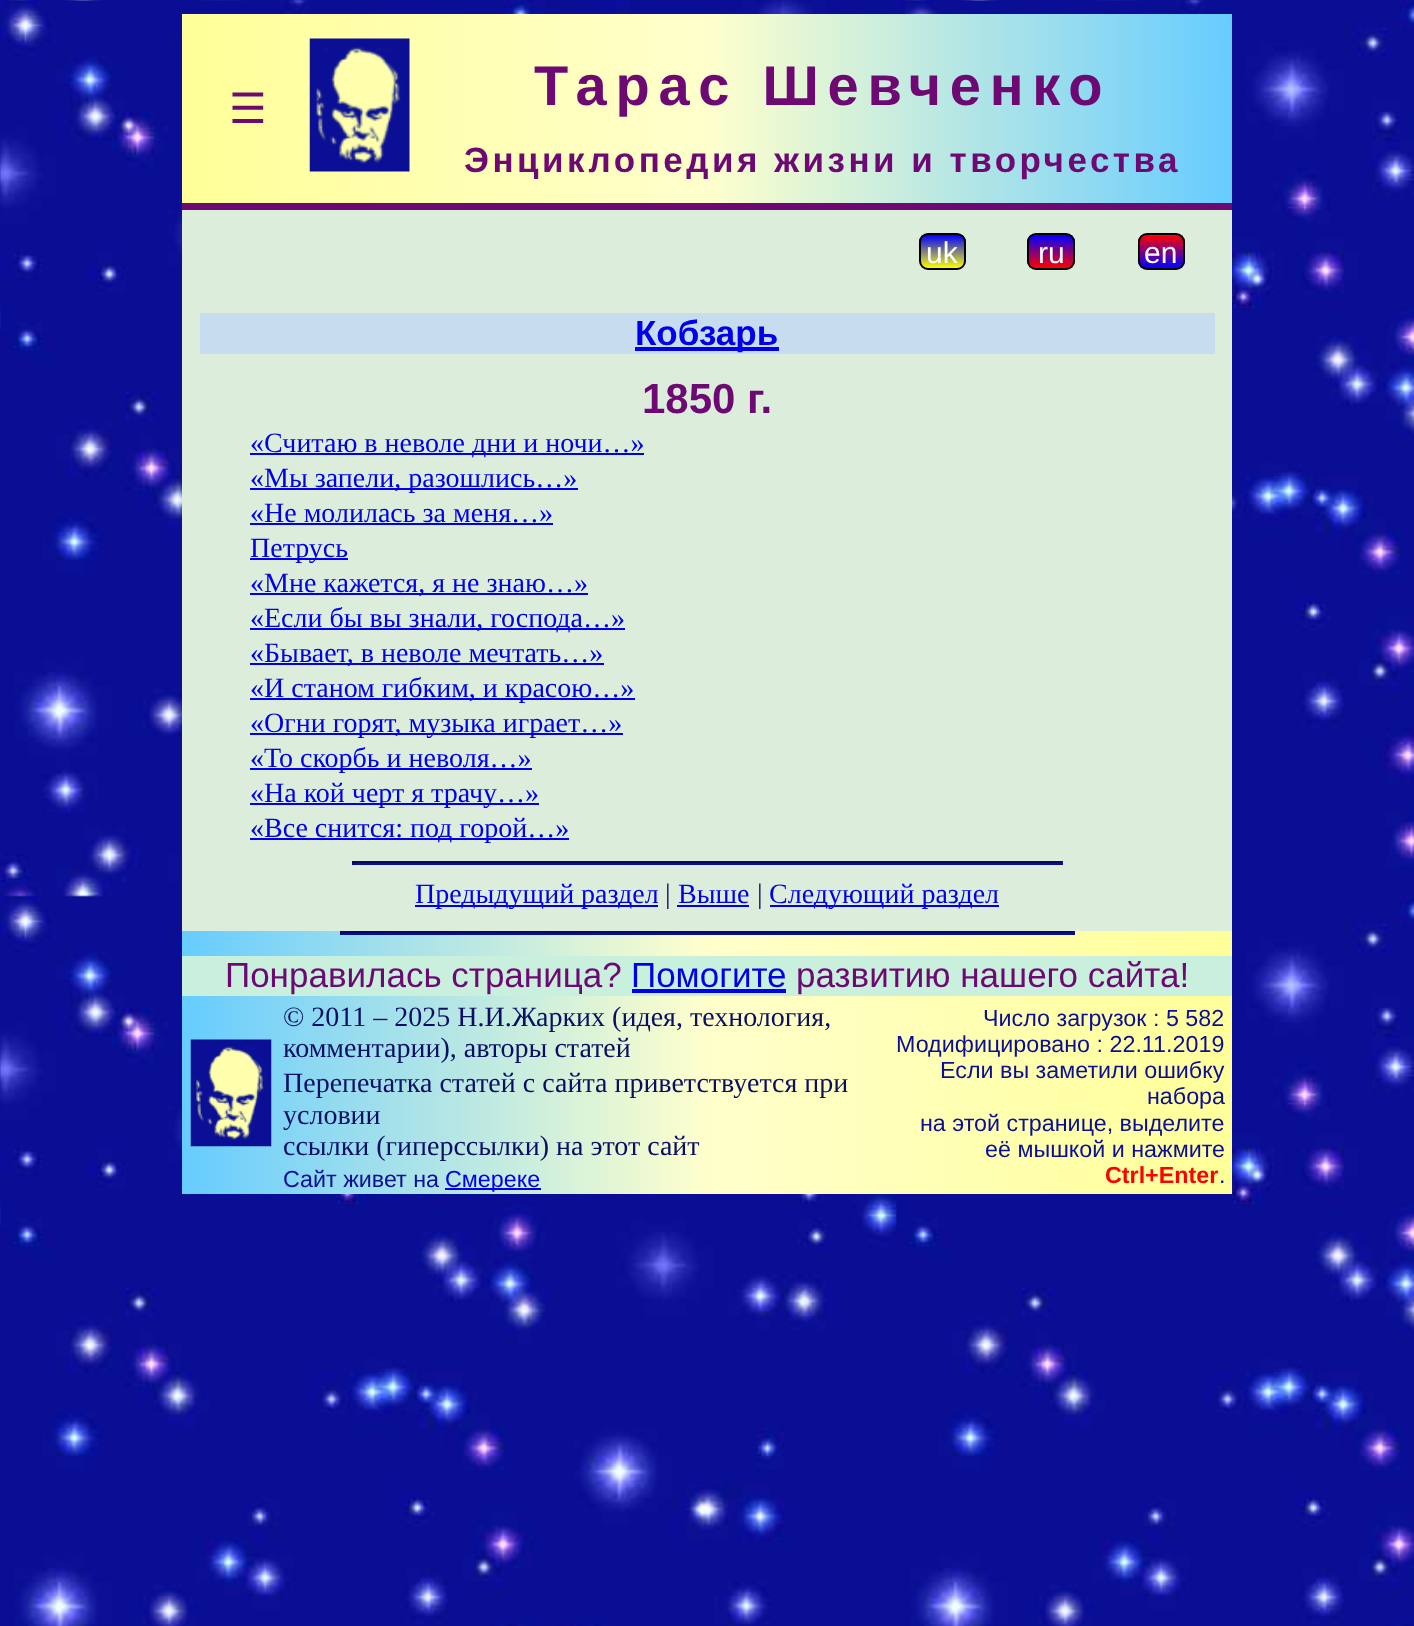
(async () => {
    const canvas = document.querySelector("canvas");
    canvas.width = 1414;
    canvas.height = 1626;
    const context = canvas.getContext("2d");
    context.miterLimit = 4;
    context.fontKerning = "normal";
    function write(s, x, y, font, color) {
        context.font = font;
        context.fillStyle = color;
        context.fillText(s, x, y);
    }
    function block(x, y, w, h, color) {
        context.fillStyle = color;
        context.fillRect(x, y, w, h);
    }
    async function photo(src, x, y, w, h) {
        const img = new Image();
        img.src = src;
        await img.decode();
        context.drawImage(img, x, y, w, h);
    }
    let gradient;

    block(0, 0, 1414, 1626, "rgb(255, 255, 255)");
    await photo("media/1.png", 0, 0, 1414, 1626);
    gradient = context.createLinearGradient(182, 109, 1232, 108);
    gradient.addColorStop(0, "rgb(255, 255, 153)");
    gradient.addColorStop(0.5, "rgb(255, 255, 204)");
    gradient.addColorStop(1, "rgb(102, 204, 255)");
    context.fillStyle = gradient;
    context.fillRect(182, 14, 1050, 189);
    block(182, 203, 1050, 7, "rgb(110, 9, 115)");
    write("☰", 229, 123, "42px DejaVu Sans", "rgb(110, 9, 115)");
    await photo("media/2.png", 309, 38, 101, 134);
    context.letterSpacing = "8.75px";
    write("Тарас Шевченко", 534, 105, "bold 56px Liberation Sans", "rgb(110, 9, 115)");
    context.letterSpacing = "3.5px";
    write("Энциклопедия жизни и творчества", 464, 172, "bold 35px Liberation Sans", "rgb(110, 9, 115)");
    block(182, 210, 1050, 721, "rgb(220, 237, 220)");
    context.save();
    context.beginPath();
    context.roundRect(919, 233, 47, 37, 9);
    context.clip();
    gradient = context.createLinearGradient(942, 235, 942, 268);
    gradient.addColorStop(0, "rgb(0, 0, 255)");
    gradient.addColorStop(1, "rgb(255, 255, 0)");
    context.fillStyle = gradient;
    context.fillRect(919, 235, 47, 33);
    context.restore();
    context.beginPath();
    context.roundRect(920, 234, 45, 35, 8);
    context.strokeStyle = "rgb(0, 0, 0)";
    context.lineWidth = 2;
    context.stroke();
    context.letterSpacing = "0px";
    write("uk", 926, 263, "30px Liberation Sans", "rgb(255, 255, 255)");
    context.save();
    context.beginPath();
    context.roundRect(1027, 233, 48, 37, 9);
    context.clip();
    gradient = context.createLinearGradient(1051, 235, 1051, 268);
    gradient.addColorStop(0, "rgb(0, 0, 255)");
    gradient.addColorStop(1, "rgb(255, 0, 0)");
    context.fillStyle = gradient;
    context.fillRect(1027, 235, 48, 33);
    context.restore();
    context.beginPath();
    context.roundRect(1028, 234, 46, 35, 8);
    context.stroke();
    write("ru", 1038, 263, "30px Liberation Sans", "rgb(255, 255, 255)");
    context.save();
    context.beginPath();
    context.roundRect(1138, 233, 47, 37, 9);
    context.clip();
    gradient = context.createLinearGradient(1161, 235, 1161, 268);
    gradient.addColorStop(0, "rgb(255, 0, 0)");
    gradient.addColorStop(1, "rgb(0, 0, 255)");
    context.fillStyle = gradient;
    context.fillRect(1138, 235, 47, 33);
    context.restore();
    context.beginPath();
    context.roundRect(1139, 234, 45, 35, 8);
    context.stroke();
    write("en", 1144, 263, "30px Liberation Sans", "rgb(255, 255, 255)");
    block(200, 313, 1015, 41, "rgb(200, 220, 240)");
    block(635, 347, 144, 4, "rgb(0, 0, 238)");
    write("Кобзарь", 635, 345, "bold 35px Liberation Sans", "rgb(0, 0, 238)");
    write("1850 г.", 642, 413, "bold 42px Liberation Sans", "rgb(110, 9, 115)");
    block(250, 453, 394, 2, "rgb(0, 0, 238)");
    write("«Считаю в неволе дни и ночи…»", 250, 452, "28px Liberation Serif", "rgb(0, 0, 238)");
    block(250, 488, 328, 2, "rgb(0, 0, 238)");
    write("«Мы запели, разошлись…»", 250, 487, "28px Liberation Serif", "rgb(0, 0, 238)");
    write("«Не молилась за меня…»", 250, 522, "28px Liberation Serif", "rgb(0, 0, 238)");
    block(250, 523, 303, 2, "rgb(0, 0, 238)");
    block(250, 558, 98, 2, "rgb(0, 0, 238)");
    write("Петрусь", 250, 557, "28px Liberation Serif", "rgb(0, 0, 238)");
    block(250, 593, 338, 2, "rgb(0, 0, 238)");
    write("«Мне кажется, я не знаю…»", 250, 592, "28px Liberation Serif", "rgb(0, 0, 238)");
    block(250, 628, 375, 2, "rgb(0, 0, 238)");
    write("«Если бы вы знали, господа…»", 250, 627, "28px Liberation Serif", "rgb(0, 0, 238)");
    block(250, 663, 354, 2, "rgb(0, 0, 238)");
    write("«Бывает, в неволе мечтать…»", 250, 662, "28px Liberation Serif", "rgb(0, 0, 238)");
    block(250, 698, 385, 2, "rgb(0, 0, 238)");
    write("«И станом гибким, и красою…»", 250, 697, "28px Liberation Serif", "rgb(0, 0, 238)");
    block(250, 733, 373, 2, "rgb(0, 0, 238)");
    write("«Огни горят, музыка играет…»", 250, 732, "28px Liberation Serif", "rgb(0, 0, 238)");
    block(250, 768, 282, 2, "rgb(0, 0, 238)");
    write("«То скорбь и неволя…»", 250, 767, "28px Liberation Serif", "rgb(0, 0, 238)");
    block(250, 803, 289, 2, "rgb(0, 0, 238)");
    write("«На кой черт я трачу…»", 250, 802, "28px Liberation Serif", "rgb(0, 0, 238)");
    block(250, 838, 319, 2, "rgb(0, 0, 238)");
    write("«Все снится: под горой…»", 250, 837, "28px Liberation Serif", "rgb(0, 0, 238)");
    block(352, 863, 710, 2, "rgb(11, 15, 150)");
    block(352, 861, 710, 2, "rgb(7, 10, 100)");
    block(1061, 861, 2, 4, "rgb(11, 15, 150)");
    block(352, 861, 2, 4, "rgb(7, 10, 100)");
    block(415, 905, 243, 2, "rgb(0, 0, 238)");
    write("Предыдущий раздел", 415, 903, "28px Liberation Serif", "rgb(0, 0, 238)");
    write("|", 665, 903, "28px Liberation Serif", "rgb(11, 15, 100)");
    write("Выше", 678, 903, "28px Liberation Serif", "rgb(0, 0, 238)");
    block(677, 905, 72, 2, "rgb(0, 0, 238)");
    write("|", 757, 903, "28px Liberation Serif", "rgb(11, 15, 100)");
    block(770, 905, 229, 2, "rgb(0, 0, 238)");
    write("Следующий раздел", 769, 903, "28px Liberation Serif", "rgb(0, 0, 238)");
    gradient = context.createLinearGradient(182, 1062, 1232, 1062);
    gradient.addColorStop(0, "rgb(102, 204, 255)");
    gradient.addColorStop(0.5, "rgb(255, 255, 204)");
    gradient.addColorStop(1, "rgb(255, 255, 153)");
    context.fillStyle = gradient;
    context.fillRect(182, 931, 1050, 263);
    block(340, 933, 735, 2, "rgb(11, 15, 150)");
    block(340, 931, 735, 2, "rgb(7, 10, 100)");
    block(1073, 931, 2, 4, "rgb(11, 15, 150)");
    block(340, 931, 2, 4, "rgb(7, 10, 100)");
    block(182, 956, 1050, 40, "rgb(200, 240, 220)");
    write("Понравилась страница?", 225, 987, "35px Liberation Sans", "rgb(110, 9, 115)");
    write("Помогите", 631, 987, "35px Liberation Sans", "rgb(0, 0, 238)");
    block(632, 989, 154, 4, "rgb(0, 0, 238)");
    write("развитию нашего сайта!", 796, 987, "35px Liberation Sans", "rgb(110, 9, 115)");
    await photo("media/3.png", 190, 1039, 82, 108);
    write("© 2011 – 2025 Н.И.Жарких (идея, технология,", 283, 1026, "28px Liberation Serif", "rgb(11, 15, 100)");
    write("комментарии), авторы статей", 283, 1057, "28px Liberation Serif", "rgb(11, 15, 100)");
    write("Перепечатка статей с сайта приветствуется при", 283, 1092, "28px Liberation Serif", "rgb(11, 15, 100)");
    write("условии", 283, 1124, "28px Liberation Serif", "rgb(11, 15, 100)");
    write("ссылки (гиперссылки) на этот сайт", 283, 1155, "28px Liberation Serif", "rgb(11, 15, 100)");
    write("Сайт живет на", 283, 1187, "23.3px Liberation Sans", "rgb(11, 15, 150)");
    block(445, 1188, 96, 2, "rgb(0, 0, 238)");
    write("Смереке", 445, 1187, "23.3px Liberation Sans", "rgb(0, 0, 238)");
    write("Число загрузок : 5 582", 983, 1026, "23.3px Liberation Sans", "rgb(11, 15, 150)");
    write("Модифицировано : 22.11.2019", 896, 1052, "23.3px Liberation Sans", "rgb(11, 15, 150)");
    write("Если вы заметили ошибку", 940, 1078, "23.3px Liberation Sans", "rgb(11, 15, 150)");
    write("набора", 1147, 1104, "23.3px Liberation Sans", "rgb(11, 15, 150)");
    write("на этой странице, выделите", 920, 1131, "23.3px Liberation Sans", "rgb(11, 15, 150)");
    write("её мышкой и нажмите", 985, 1157, "23.3px Liberation Sans", "rgb(11, 15, 150)");
    write("Ctrl+Enter", 1105, 1183, "bold 23.3px Liberation Sans", "rgb(255, 0, 0)");
    write(".", 1219, 1183, "23.3px Liberation Sans", "rgb(11, 15, 150)");
})();
